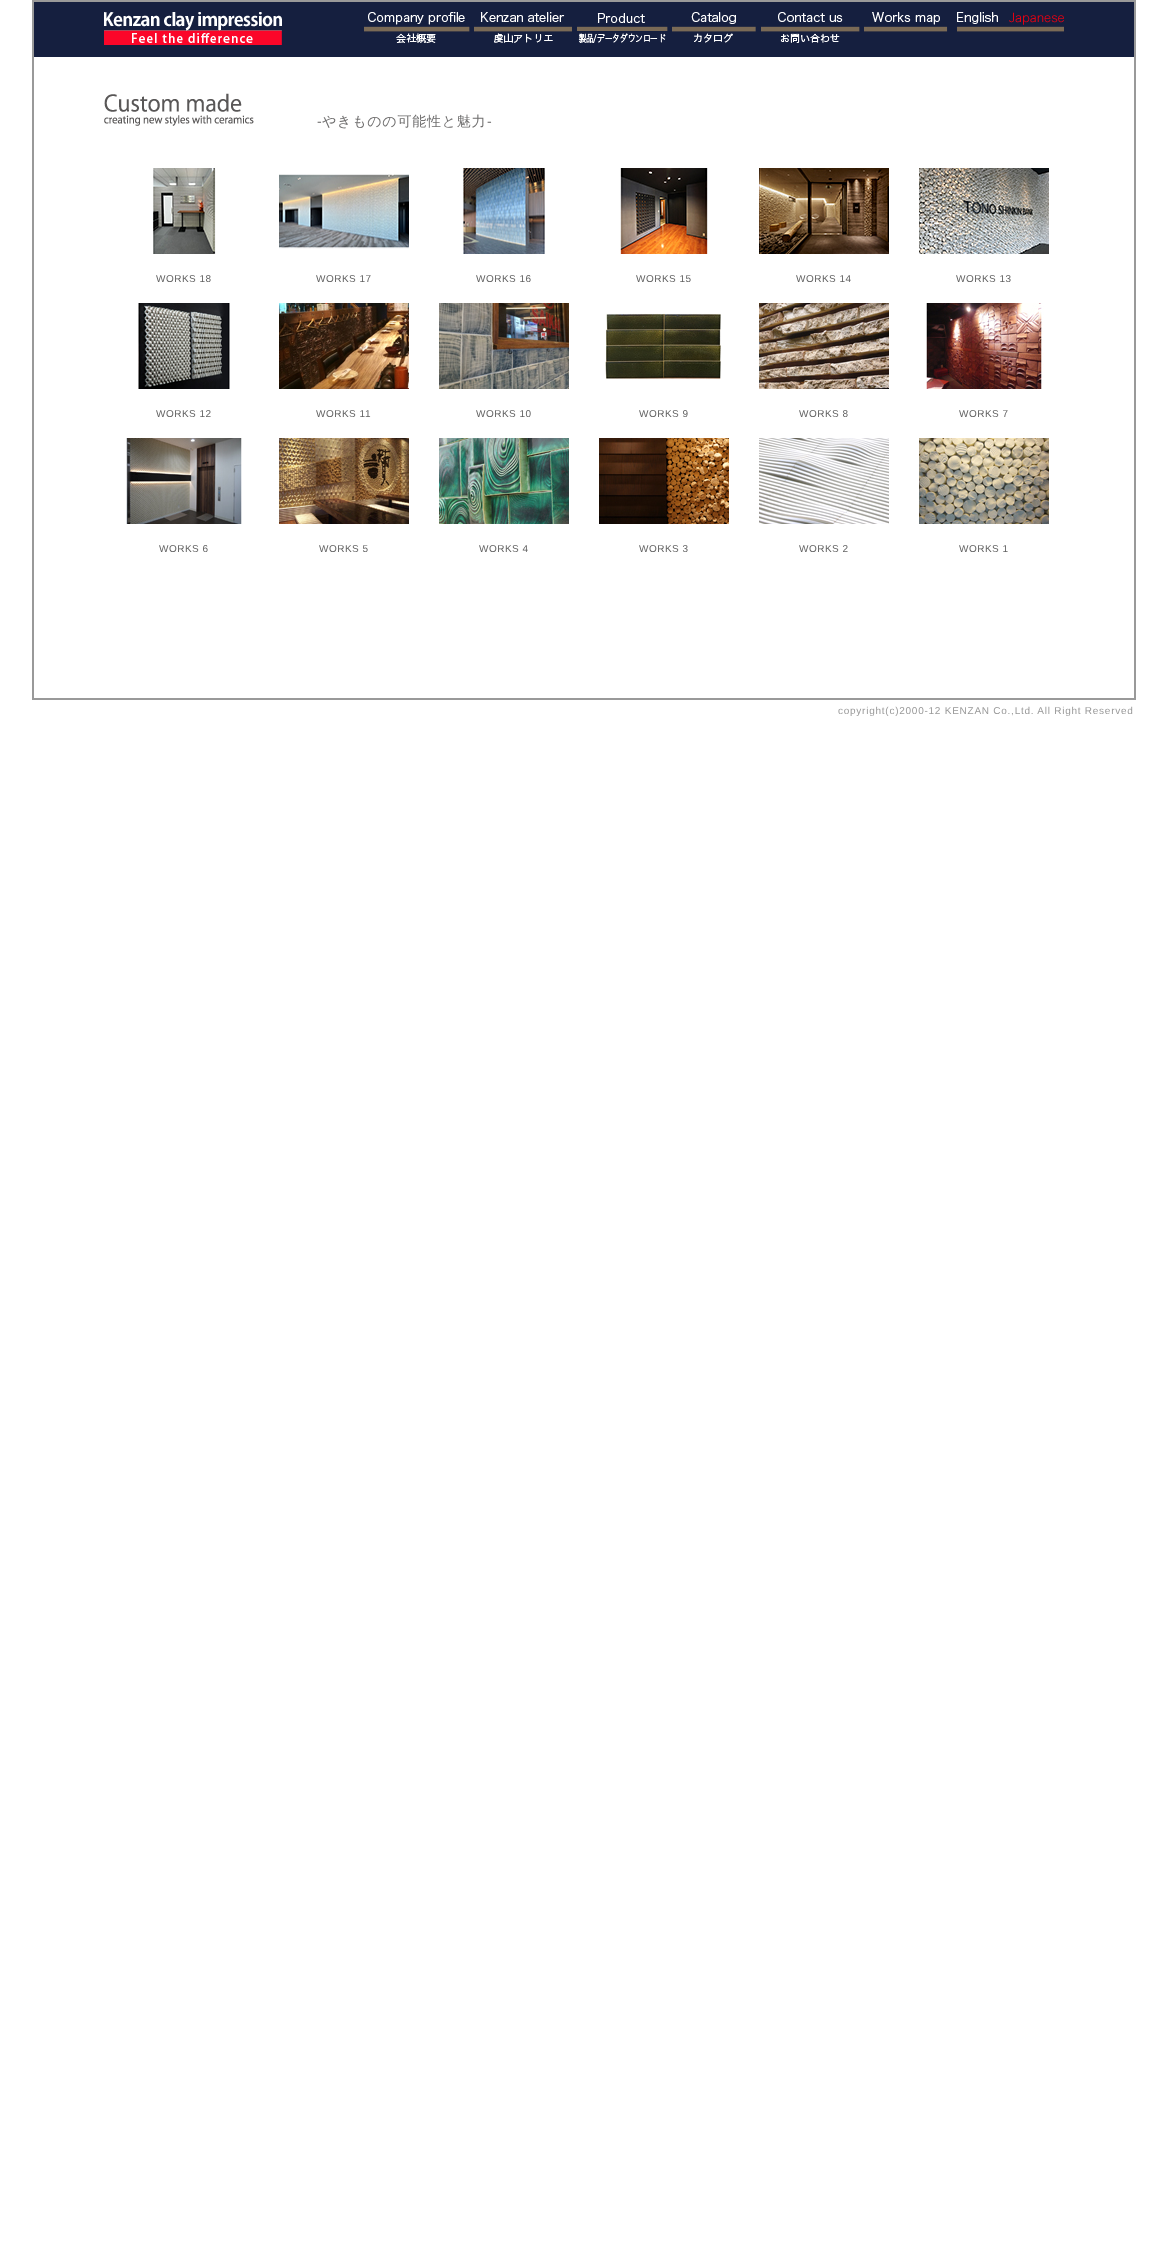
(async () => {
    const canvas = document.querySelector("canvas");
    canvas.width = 1167;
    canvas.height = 2258;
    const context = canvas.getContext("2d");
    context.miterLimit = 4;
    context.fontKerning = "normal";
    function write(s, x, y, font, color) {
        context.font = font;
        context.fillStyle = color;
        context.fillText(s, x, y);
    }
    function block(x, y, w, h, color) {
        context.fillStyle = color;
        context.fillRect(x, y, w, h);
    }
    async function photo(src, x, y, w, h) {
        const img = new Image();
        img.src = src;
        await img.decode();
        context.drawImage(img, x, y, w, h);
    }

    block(0, 0, 1167, 2258, "rgb(255, 255, 255)");
    context.strokeStyle = "rgb(153, 153, 153)";
    context.lineWidth = 2;
    context.strokeRect(33, 1, 1102, 698);
    block(34, 2, 1100, 55, "rgb(21, 31, 63)");
    await photo("media/1.png", 104, 12, 178, 33);
    await photo("media/2.png", 364, 12, 106, 31);
    await photo("media/3.png", 474, 12, 98, 31);
    await photo("media/4.png", 577, 13, 91, 30);
    await photo("media/5.png", 672, 12, 84, 31);
    await photo("media/6.png", 761, 12, 99, 31);
    await photo("media/7.png", 864, 12, 84, 20);
    await photo("media/8.png", 957, 12, 52, 20);
    await photo("media/9.png", 1009, 12, 55, 20);
    await photo("media/10.png", 104, 93, 150, 33);
    context.letterSpacing = "0.75px";
    write("-", 317, 126, "14px Liberation Sans", "rgb(112, 111, 111)");
    write("やきものの可能性と魅力", 322, 126, "500 14px WenQuanYi Zen Hei", "rgb(112, 111, 111)");
    write("-", 487, 126, "14px Liberation Sans", "rgb(112, 111, 111)");
    await photo("media/11.png", 153, 168, 63, 86);
    context.letterSpacing = "0.5px";
    write("WORKS 18", 156, 282, "10px Liberation Sans", "rgb(98, 98, 98)");
    await photo("media/12.png", 279, 174, 130, 75);
    write("WORKS 17", 316, 282, "10px Liberation Sans", "rgb(98, 98, 98)");
    await photo("media/13.png", 463, 168, 82, 86);
    write("WORKS 16", 476, 282, "10px Liberation Sans", "rgb(98, 98, 98)");
    await photo("media/14.png", 620, 168, 88, 86);
    write("WORKS 15", 636, 282, "10px Liberation Sans", "rgb(98, 98, 98)");
    await photo("media/15.png", 759, 168, 130, 86);
    write("WORKS 14", 796, 282, "10px Liberation Sans", "rgb(98, 98, 98)");
    await photo("media/16.png", 919, 168, 130, 86);
    write("WORKS 13", 956, 282, "10px Liberation Sans", "rgb(98, 98, 98)");
    await photo("media/17.png", 138, 303, 92, 86);
    write("WORKS 12", 156, 417, "10px Liberation Sans", "rgb(98, 98, 98)");
    await photo("media/18.png", 279, 303, 130, 86);
    write("WORKS 11", 316, 417, "10px Liberation Sans", "rgb(98, 98, 98)");
    await photo("media/19.png", 439, 303, 130, 86);
    write("WORKS 10", 476, 417, "10px Liberation Sans", "rgb(98, 98, 98)");
    await photo("media/20.png", 605, 313, 116, 67);
    write("WORKS 9", 639, 417, "10px Liberation Sans", "rgb(98, 98, 98)");
    await photo("media/21.png", 759, 303, 130, 86);
    write("WORKS 8", 799, 417, "10px Liberation Sans", "rgb(98, 98, 98)");
    await photo("media/22.png", 926, 303, 118, 86);
    write("WORKS 7", 959, 417, "10px Liberation Sans", "rgb(98, 98, 98)");
    await photo("media/23.png", 126, 438, 116, 86);
    write("WORKS 6", 159, 552, "10px Liberation Sans", "rgb(98, 98, 98)");
    await photo("media/24.png", 279, 438, 130, 86);
    write("WORKS 5", 319, 552, "10px Liberation Sans", "rgb(98, 98, 98)");
    await photo("media/25.png", 439, 438, 130, 86);
    write("WORKS 4", 479, 552, "10px Liberation Sans", "rgb(98, 98, 98)");
    await photo("media/26.png", 599, 438, 130, 86);
    write("WORKS 3", 639, 552, "10px Liberation Sans", "rgb(98, 98, 98)");
    await photo("media/27.png", 759, 438, 130, 86);
    write("WORKS 2", 799, 552, "10px Liberation Sans", "rgb(98, 98, 98)");
    await photo("media/28.png", 919, 438, 130, 86);
    write("WORKS 1", 959, 552, "10px Liberation Sans", "rgb(98, 98, 98)");
    context.letterSpacing = "0.75px";
    write("copyright(c)2000-12 KENZAN Co.,Ltd. All Right Reserved", 838, 714, "10px Liberation Sans", "rgb(153, 153, 153)");
})();
